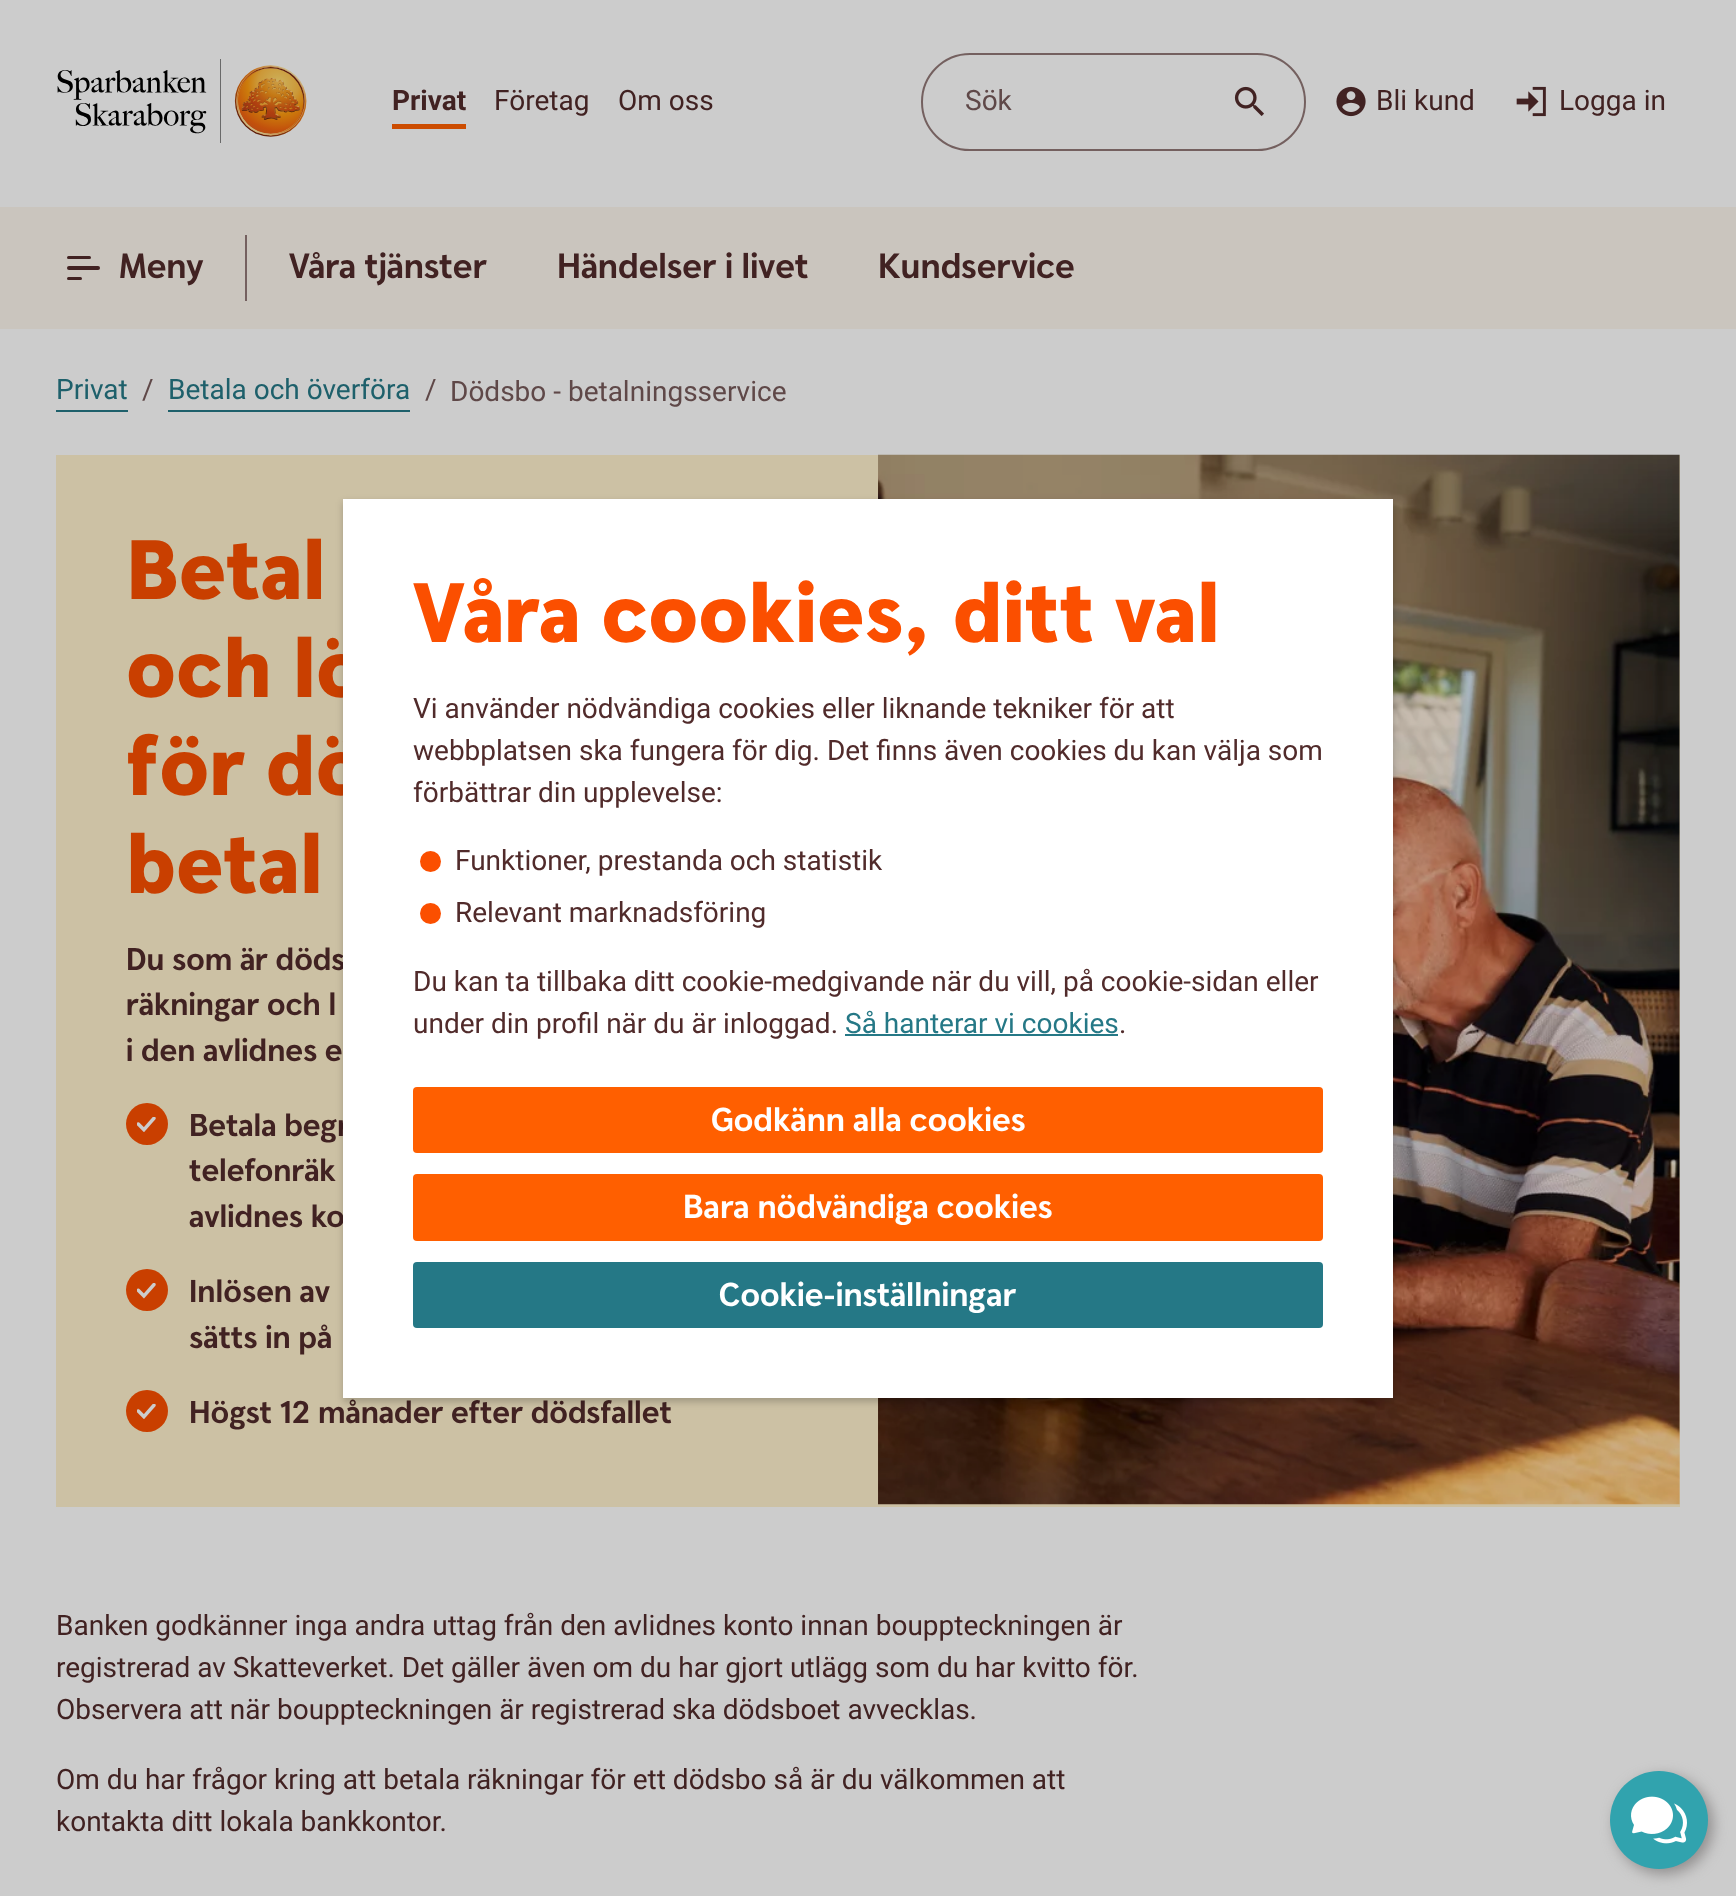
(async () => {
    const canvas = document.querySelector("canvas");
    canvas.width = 1736;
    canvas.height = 1896;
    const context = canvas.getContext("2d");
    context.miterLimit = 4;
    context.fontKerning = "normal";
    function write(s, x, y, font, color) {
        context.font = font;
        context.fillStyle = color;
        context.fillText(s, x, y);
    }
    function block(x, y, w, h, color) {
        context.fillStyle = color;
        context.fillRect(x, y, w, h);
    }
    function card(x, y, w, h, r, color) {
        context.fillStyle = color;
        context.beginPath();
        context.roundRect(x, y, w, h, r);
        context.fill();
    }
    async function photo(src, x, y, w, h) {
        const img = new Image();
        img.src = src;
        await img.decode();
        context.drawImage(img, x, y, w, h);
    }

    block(0, 0, 1736, 1896, "rgb(204, 204, 204)");
    await photo("media/1.png", 57, 59, 250, 84);
    block(392, 124, 74, 5, "rgb(204, 76, 0)");
    write("Privat", 392, 110, "bold 28px Roboto", "rgb(65, 34, 34)");
    write("Företag", 494, 110, "28px Roboto", "rgb(65, 34, 34)");
    write("Om oss", 618, 110, "28px Roboto", "rgb(65, 34, 34)");
    context.beginPath();
    context.roundRect(922, 54, 383, 96, 48);
    context.strokeStyle = "rgb(116, 96, 95)";
    context.lineWidth = 2;
    context.stroke();
    write("Sök", 965, 110, "28px Roboto", "rgb(95, 72, 72)");
    await photo("media/2.png", 1234, 86, 30, 30);
    await photo("media/3.png", 1336, 86, 30, 31);
    write("Bli kund", 1376, 110, "28px Roboto", "rgb(65, 34, 34)");
    await photo("media/4.png", 1516, 86, 30, 31);
    write("Logga in", 1559, 110, "28px Roboto", "rgb(65, 34, 34)");
    block(0, 207, 1736, 122, "rgb(202, 197, 190)");
    card(67, 256, 24, 3, 1.5, "rgb(65, 34, 34)");
    card(67, 266, 33, 4, 2, "rgb(65, 34, 34)");
    card(67, 277, 15, 3, 1.5, "rgb(65, 34, 34)");
    write("Meny", 119, 278, "bold 35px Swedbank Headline", "rgb(65, 34, 34)");
    block(245, 235, 2, 66, "rgb(116, 96, 95)");
    write("Våra tjänster", 289, 278, "bold 35px Swedbank Headline", "rgb(65, 34, 34)");
    write("Händelser i livet", 557, 278, "bold 35px Swedbank Headline", "rgb(65, 34, 34)");
    write("Kundservice", 878, 278, "bold 35px Swedbank Headline", "rgb(65, 34, 34)");
    write("Privat", 56, 399, "28px Roboto", "rgb(30, 96, 107)");
    block(56, 410, 72, 2, "rgb(30, 96, 107)");
    write("/", 142, 399, "28px Roboto", "rgb(95, 72, 72)");
    write("Betala och överföra", 168, 399, "28px Roboto", "rgb(30, 96, 107)");
    block(168, 410, 242, 2, "rgb(30, 96, 107)");
    write("/", 425, 399, "28px Roboto", "rgb(95, 72, 72)");
    write("Dödsbo - betalningsservice", 450, 401, "28px Roboto", "rgb(95, 72, 72)");
    block(56, 455, 1624, 1052, "rgb(204, 193, 164)");
    write("Betal", 126, 599, "900 84px Swedbank Headline", "rgb(201, 63, 0)");
    write("och lö", 126, 697, "900 84px Swedbank Headline", "rgb(201, 63, 0)");
    write("för dö", 126, 795, "900 84px Swedbank Headline", "rgb(201, 63, 0)");
    write("betal", 126, 893, "900 84px Swedbank Headline", "rgb(201, 63, 0)");
    write("Du som är döds", 126, 970, "bold 31.5px Swedbank Headline", "rgb(65, 34, 34)");
    write("räkningar och l", 126, 1015, "bold 31.5px Swedbank Headline", "rgb(65, 34, 34)");
    write("i den avlidnes e", 126, 1061, "bold 31.5px Swedbank Headline", "rgb(65, 34, 34)");
    context.fillStyle = "rgb(201, 63, 0)";
    context.beginPath();
    context.arc(147, 1124, 21, 0, Math.PI * 2);
    context.fill();
    write("Betala begr", 189, 1136, "bold 31.5px Swedbank Headline", "rgb(65, 34, 34)");
    await photo("media/5.png", 137, 1117, 19, 15);
    write("telefonräk", 189, 1181, "bold 31.5px Swedbank Headline", "rgb(65, 34, 34)");
    write("avlidnes ko", 189, 1227, "bold 31.5px Swedbank Headline", "rgb(65, 34, 34)");
    context.fillStyle = "rgb(201, 63, 0)";
    context.beginPath();
    context.arc(147, 1290, 21, 0, Math.PI * 2);
    context.fill();
    write("Inlösen av", 189, 1302, "bold 31.5px Swedbank Headline", "rgb(65, 34, 34)");
    await photo("media/6.png", 137, 1283, 19, 16);
    write("sätts in på", 189, 1348, "bold 31.5px Swedbank Headline", "rgb(65, 34, 34)");
    context.fillStyle = "rgb(201, 63, 0)";
    context.beginPath();
    context.arc(147, 1411, 21, 0, Math.PI * 2);
    context.fill();
    write("Högst 12 månader efter dödsfallet", 189, 1423, "bold 31.5px Swedbank Headline", "rgb(65, 34, 34)");
    await photo("media/5.png", 137, 1404, 19, 15);
    await photo("media/7.png", 878, 454, 802, 1051);
    write("Banken godkänner inga andra uttag från den avlidnes konto innan bouppteckningen är", 56, 1635, "28px Roboto", "rgb(65, 34, 34)");
    write("registrerad av Skatteverket. Det gäller även om du har gjort utlägg som du har kvitto för.", 56, 1677, "28px Roboto", "rgb(65, 34, 34)");
    write("Observera att när bouppteckningen är registrerad ska dödsboet avvecklas.", 56, 1719, "28px Roboto", "rgb(65, 34, 34)");
    write("Om du har frågor kring att betala räkningar för ett dödsbo så är du välkommen att", 56, 1789, "28px Roboto", "rgb(65, 34, 34)");
    write("kontakta ditt lokala bankkontor.", 56, 1831, "28px Roboto", "rgb(65, 34, 34)");
    context.fillStyle = "rgba(0, 0, 0, 0.2)";
    context.filter = "blur(3.5px)";
    context.beginPath();
    context.rect(343, 502, 1050, 900);
    context.fill();
    context.filter = "none";
    block(343, 499, 1050, 899, "rgb(255, 255, 255)");
    write("Våra cookies, ditt val", 413, 642, "900 84px Swedbank Headline", "rgb(251, 79, 0)");
    write("Vi använder nödvändiga cookies eller liknande tekniker för att", 413, 718, "28px Roboto", "rgb(81, 43, 43)");
    write("webbplatsen ska fungera för dig. Det finns även cookies du kan välja som", 413, 760, "28px Roboto", "rgb(81, 43, 43)");
    write("förbättrar din upplevelse:", 413, 802, "28px Roboto", "rgb(81, 43, 43)");
    context.fillStyle = "rgb(251, 79, 0)";
    context.beginPath();
    context.arc(430.5, 861.5, 10.5, 0, Math.PI * 2);
    context.fill();
    write("Funktioner, prestanda och statistik", 455, 870, "28px Roboto", "rgb(81, 43, 43)");
    context.fillStyle = "rgb(251, 79, 0)";
    context.beginPath();
    context.arc(430.5, 913.5, 10.5, 0, Math.PI * 2);
    context.fill();
    write("Relevant marknadsföring", 455, 922, "28px Roboto", "rgb(81, 43, 43)");
    write("Du kan ta tillbaka ditt cookie-medgivande när du vill, på cookie-sidan eller", 413, 991, "28px Roboto", "rgb(81, 43, 43)");
    write("under din profil när du är inloggad.", 413, 1033, "28px Roboto", "rgb(81, 43, 43)");
    write("Så hanterar vi cookies", 845, 1033, "28px Roboto", "rgb(37, 120, 134)");
    block(845, 1034, 273, 2, "rgb(37, 120, 134)");
    write(".", 1119, 1033, "28px Roboto", "rgb(81, 43, 43)");
    card(413, 1087, 910, 66, 4, "rgb(255, 95, 0)");
    write("Godkänn alla cookies", 711, 1131, "bold 33.25px Swedbank Headline", "rgb(255, 255, 255)");
    card(413, 1174, 910, 67, 4, "rgb(255, 95, 0)");
    write("Bara nödvändiga cookies", 683, 1218, "bold 33.25px Swedbank Headline", "rgb(255, 255, 255)");
    card(413, 1262, 910, 66, 4, "rgb(37, 120, 134)");
    write("Cookie-inställningar", 719, 1306, "bold 33.25px Swedbank Headline", "rgb(255, 255, 255)");
    context.fillStyle = "rgb(144, 142, 142)";
    context.filter = "blur(7px)";
    context.beginPath();
    context.roundRect(1615, 1776, 98, 98, 49);
    context.fill();
    context.filter = "none";
    context.fillStyle = "rgb(49, 163, 174)";
    context.beginPath();
    context.arc(1659, 1820, 49, 0, Math.PI * 2);
    context.fill();
    await photo("media/8.png", 1631, 1796, 56, 48);
})();
